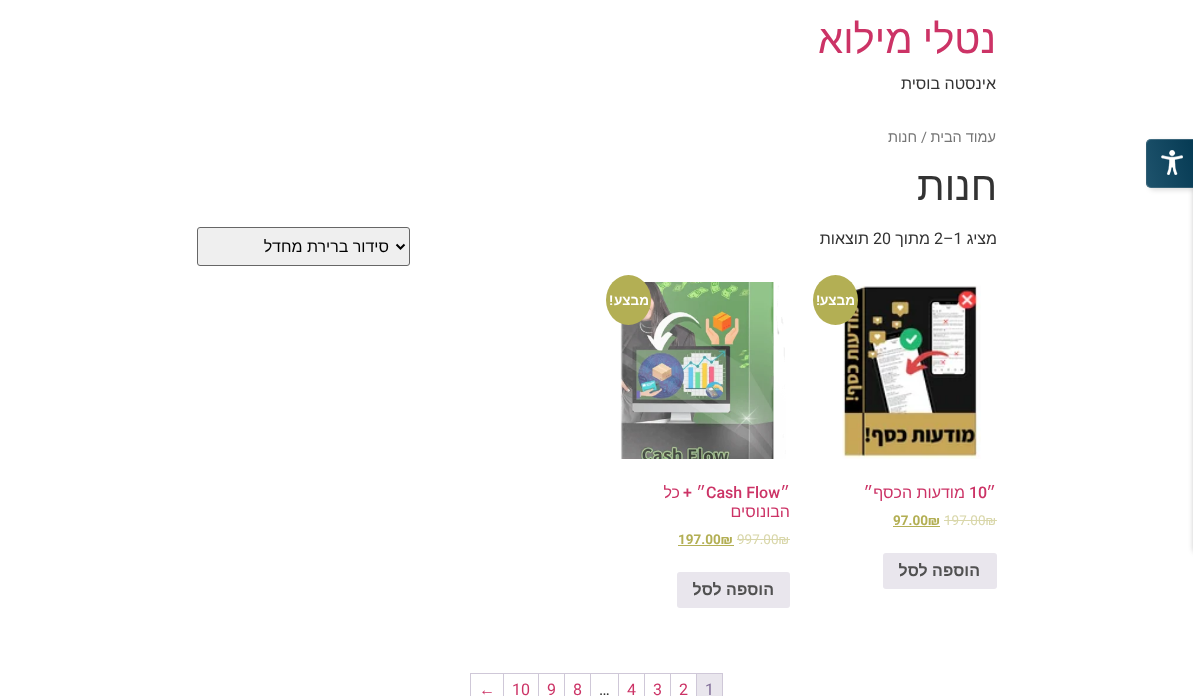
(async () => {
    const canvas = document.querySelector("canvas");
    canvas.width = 1193;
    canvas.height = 696;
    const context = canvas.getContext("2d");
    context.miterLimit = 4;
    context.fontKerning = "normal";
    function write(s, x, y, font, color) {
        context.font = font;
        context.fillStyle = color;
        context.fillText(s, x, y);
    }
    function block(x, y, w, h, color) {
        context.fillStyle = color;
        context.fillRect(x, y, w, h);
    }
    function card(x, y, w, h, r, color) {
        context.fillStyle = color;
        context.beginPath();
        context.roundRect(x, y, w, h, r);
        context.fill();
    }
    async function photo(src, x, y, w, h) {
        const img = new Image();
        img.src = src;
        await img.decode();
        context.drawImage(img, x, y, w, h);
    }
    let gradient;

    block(0, 0, 1193, 696, "rgb(255, 255, 255)");
    context.wordSpacing = "-1px";
    context.direction = "rtl";
    write("נטלי מילוא", 996, 53, "40px Liberation Sans", "rgb(204, 51, 102)");
    context.wordSpacing = "0px";
    write("אינסטה בוסית", 996, 89, "16px Liberation Sans", "rgb(51, 51, 51)");
    context.fillStyle = "rgba(0, 0, 0, 0.14)";
    context.filter = "blur(2.5px)";
    context.beginPath();
    context.roundRect(1149, 141, 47, 49, 5);
    context.fill();
    context.filter = "none";
    context.fillStyle = "rgba(0, 1, 1, 0.2)";
    context.filter = "blur(2.5px)";
    context.beginPath();
    context.roundRect(1193, 144, 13, 409, 5);
    context.fill();
    context.filter = "none";
    context.fillStyle = "rgb(9, 90, 129)";
    context.beginPath();
    context.roundRect(1146, 139, 47, 49, [5, 0, 0, 5]);
    context.fill();
    context.save();
    context.beginPath();
    context.roundRect(1146, 139, 47, 49, [5, 0, 0, 5]);
    context.clip();
    gradient = context.createLinearGradient(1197, 109, 1143, 124);
    gradient.addColorStop(0.01, "rgba(0, 0, 0, 0.35)");
    gradient.addColorStop(0.98, "rgba(67, 67, 67, 0.35)");
    context.fillStyle = gradient;
    context.fillRect(1147, 139, 46, 1);
    gradient = context.createLinearGradient(1151, 156, 1097, 171);
    gradient.addColorStop(0.01, "rgba(0, 0, 0, 0.35)");
    gradient.addColorStop(0.98, "rgba(67, 67, 67, 0.35)");
    context.fillStyle = gradient;
    context.fillRect(1146, 140, 1, 47);
    context.restore();
    gradient = context.createLinearGradient(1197, 156, 1143, 171);
    gradient.addColorStop(0.01, "rgba(0, 0, 0, 0.35)");
    gradient.addColorStop(0.98, "rgba(67, 67, 67, 0.35)");
    context.fillStyle = gradient;
    context.fillRect(1147, 140, 46, 47);
    context.save();
    context.beginPath();
    context.roundRect(1146, 139, 47, 49, [5, 0, 0, 5]);
    context.clip();
    gradient = context.createLinearGradient(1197, 203, 1143, 218);
    gradient.addColorStop(0.01, "rgba(0, 0, 0, 0.35)");
    gradient.addColorStop(0.98, "rgba(67, 67, 67, 0.35)");
    context.fillStyle = gradient;
    context.fillRect(1147, 187, 46, 1);
    context.restore();
    context.fillStyle = "rgba(255, 255, 255, 0.17)";
    context.beginPath();
    context.moveTo(1151, 139);
    context.lineTo(1193, 139);
    context.lineTo(1193, 188);
    context.lineTo(1151, 188);
    context.bezierCurveTo(1148, 188, 1146, 186, 1146, 183);
    context.lineTo(1146, 144);
    context.bezierCurveTo(1146, 141, 1148, 139, 1151, 139);
    context.closePath();
    context.moveTo(1151, 140);
    context.lineTo(1193, 140);
    context.lineTo(1193, 187);
    context.lineTo(1151, 187);
    context.bezierCurveTo(1149, 187, 1147, 185, 1147, 183);
    context.lineTo(1147, 144);
    context.bezierCurveTo(1147, 142, 1149, 140, 1151, 140);
    context.closePath();
    context.fill("evenodd");
    await photo("media/1.png", 1161, 150, 22, 25);
    write("עמוד הבית", 996, 142, "14.5px Liberation Sans", "rgb(118, 118, 118)");
    write("/", 927, 142, "14.5px Roboto", "rgb(118, 118, 118)");
    write("חנות", 917, 142, "14.5px Liberation Sans", "rgb(118, 118, 118)");
    write("חנות", 997, 200, "40px Liberation Sans", "rgb(51, 51, 51)");
    write("מציג", 997, 244, "16px Liberation Sans", "rgb(51, 51, 51)");
    context.direction = "ltr";
    write("2–1", 934, 244, "16px Roboto", "rgb(51, 51, 51)");
    context.direction = "rtl";
    write("מתוך", 930, 244, "16px Liberation Sans", "rgb(51, 51, 51)");
    context.direction = "ltr";
    write("20", 873, 244, "16px Roboto", "rgb(51, 51, 51)");
    context.direction = "rtl";
    write("תוצאות", 869, 244, "16px Liberation Sans", "rgb(51, 51, 51)");
    context.fillStyle = "rgb(239, 239, 239)";
    context.beginPath();
    context.roundRect(197.5, 227.5, 212, 38, 2.5);
    context.fill();
    context.strokeStyle = "rgb(102, 102, 102)";
    context.stroke();
    context.beginPath();
    context.moveTo(396.5, 244.5);
    context.lineTo(400.5, 248.5);
    context.lineTo(404.5, 244.5);
    context.strokeStyle = "rgb(0, 0, 0)";
    context.lineWidth = 2;
    context.stroke();
    write("סידור ברירת מחדל", 389, 252, "16px Liberation Sans", "rgb(0, 0, 0)");
    await photo("media/2.png", 842, 285, 139, 174);
    context.fillStyle = "rgb(179, 175, 84)";
    context.beginPath();
    context.ellipse(835.5, 300, 22.5, 25, 0, 0, Math.PI * 2);
    context.fill();
    write("מבצע", 855, 305, "bold 13.5px Liberation Sans", "rgb(255, 255, 255)");
    write("!", 820, 305, "bold 13.5px Roboto", "rgb(255, 255, 255)");
    write("״", 996, 498, "16px Liberation Sans", "rgb(204, 51, 102)");
    context.direction = "ltr";
    write("10", 969, 498, "500 16px Roboto", "rgb(204, 51, 102)");
    context.direction = "rtl";
    write("מודעות הכסף״", 965, 498, "16px Liberation Sans", "rgb(204, 51, 102)");
    context.direction = "ltr";
    write("197.00₪", 944, 525, "13.5px Roboto", "rgb(217, 215, 170)");
    block(944, 520, 53, 1, "rgb(217, 215, 170)");
    write("97.00₪", 893, 525, "bold 13.5px Roboto", "rgb(179, 175, 84)");
    block(893, 526, 47, 1, "rgb(179, 175, 84)");
    card(883, 553, 114, 36, 3, "rgb(233, 230, 237)");
    context.direction = "rtl";
    write("הוספה לסל", 980, 576, "bold 16px Liberation Sans", "rgb(81, 81, 81)");
    await photo("media/3.png", 620, 282, 166, 177);
    context.fillStyle = "rgb(179, 175, 84)";
    context.beginPath();
    context.ellipse(628.5, 300, 22.5, 25, 0, 0, Math.PI * 2);
    context.fill();
    write("מבצע", 649, 305, "bold 13.5px Liberation Sans", "rgb(255, 255, 255)");
    write("!", 613, 305, "bold 13.5px Roboto", "rgb(255, 255, 255)");
    write("״", 790, 498, "16px Liberation Sans", "rgb(204, 51, 102)");
    context.direction = "ltr";
    write("Cash Flow", 706, 498, "500 16px Roboto", "rgb(204, 51, 102)");
    context.direction = "rtl";
    write("״", 706, 498, "16px Liberation Sans", "rgb(204, 51, 102)");
    write("+", 692, 498, "500 16px Roboto", "rgb(204, 51, 102)");
    write("כל", 680, 498, "16px Liberation Sans", "rgb(204, 51, 102)");
    write("הבונוסים", 790, 517, "16px Liberation Sans", "rgb(204, 51, 102)");
    context.direction = "ltr";
    write("997.00₪", 737, 544, "13.5px Roboto", "rgb(217, 215, 170)");
    block(737, 539, 53, 1, "rgb(217, 215, 170)");
    write("197.00₪", 678, 544, "bold 13.5px Roboto", "rgb(179, 175, 84)");
    block(678, 545, 56, 1, "rgb(179, 175, 84)");
    card(677, 572, 113, 36, 3, "rgb(233, 230, 237)");
    context.direction = "rtl";
    write("הוספה לסל", 774, 595, "bold 16px Liberation Sans", "rgb(81, 81, 81)");
    block(470, 673, 253, 1, "rgb(207, 200, 216)");
    block(722, 673, 1, 23, "rgb(207, 200, 216)");
    block(696, 674, 1, 22, "rgb(207, 200, 216)");
    block(697, 674, 25, 22, "rgb(233, 230, 237)");
    context.direction = "ltr";
    write("1", 705, 695, "16px Roboto", "rgb(129, 110, 153)");
    block(670, 674, 1, 22, "rgb(207, 200, 216)");
    write("2", 679, 695, "16px Roboto", "rgb(204, 51, 102)");
    block(644, 674, 1, 22, "rgb(207, 200, 216)");
    write("3", 653, 695, "16px Roboto", "rgb(204, 51, 102)");
    block(618, 674, 1, 22, "rgb(207, 200, 216)");
    write("4", 627, 695, "16px Roboto", "rgb(204, 51, 102)");
    block(590, 674, 1, 22, "rgb(207, 200, 216)");
    write("…", 599, 695, "16px Roboto", "rgb(51, 51, 51)");
    block(564, 674, 1, 22, "rgb(207, 200, 216)");
    write("8", 573, 695, "16px Roboto", "rgb(204, 51, 102)");
    block(538, 674, 1, 22, "rgb(207, 200, 216)");
    write("9", 547, 695, "16px Roboto", "rgb(204, 51, 102)");
    block(503, 674, 1, 22, "rgb(207, 200, 216)");
    write("10", 512, 695, "16px Roboto", "rgb(204, 51, 102)");
    block(470, 674, 1, 22, "rgb(207, 200, 216)");
    write("←", 479, 695, "16px Liberation Sans", "rgb(204, 51, 102)");
})();
